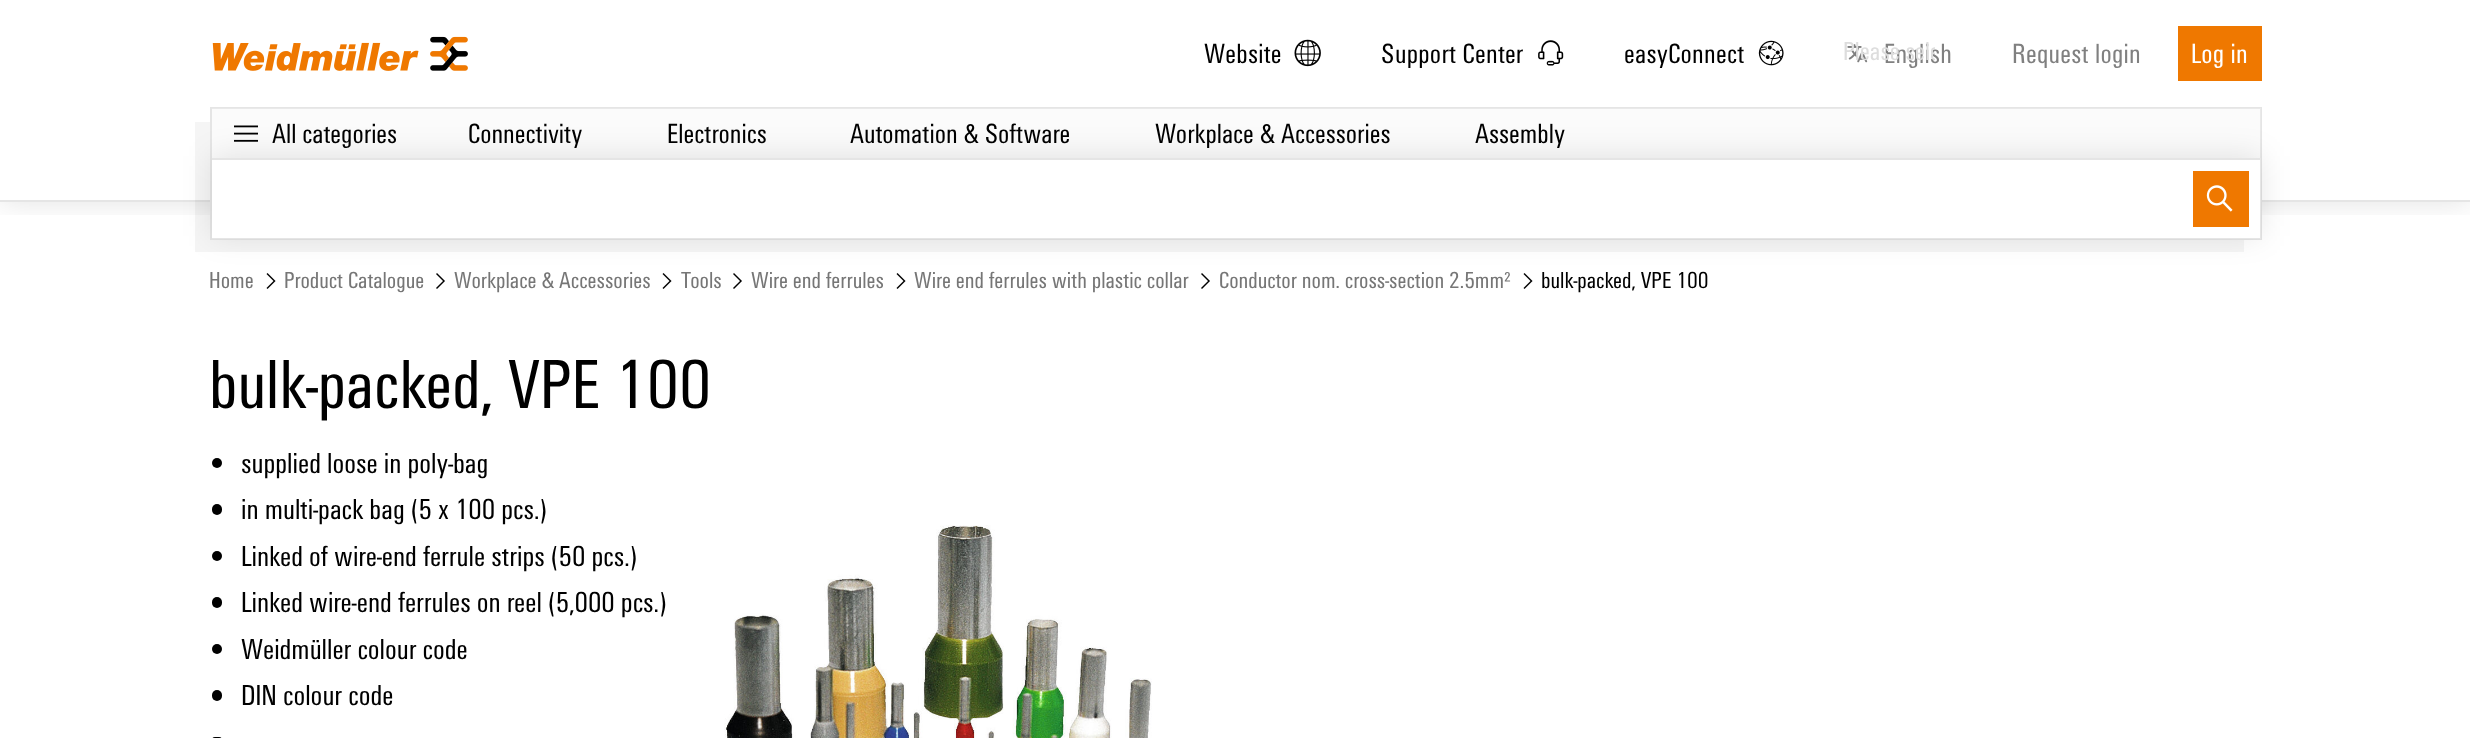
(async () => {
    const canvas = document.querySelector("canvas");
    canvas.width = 2470;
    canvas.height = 738;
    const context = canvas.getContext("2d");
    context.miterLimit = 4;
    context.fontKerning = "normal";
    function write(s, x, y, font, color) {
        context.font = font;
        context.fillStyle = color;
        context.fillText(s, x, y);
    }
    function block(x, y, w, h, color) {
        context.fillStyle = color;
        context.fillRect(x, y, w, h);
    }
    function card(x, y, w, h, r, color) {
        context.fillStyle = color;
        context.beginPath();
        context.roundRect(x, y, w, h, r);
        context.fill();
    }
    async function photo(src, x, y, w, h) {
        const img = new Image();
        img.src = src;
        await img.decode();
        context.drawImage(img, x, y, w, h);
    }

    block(0, 0, 2470, 738, "rgb(255, 255, 255)");
    context.save();
    context.beginPath();
    context.rect(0, 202, 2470, 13);
    context.clip();
    context.fillStyle = "rgba(0, 0, 0, 0.12)";
    context.filter = "blur(15px)";
    context.beginPath();
    context.rect(0, 0, 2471, 201);
    context.fill();
    context.filter = "none";
    context.restore();
    block(0, 200, 2470, 2, "rgb(229, 229, 229)");
    await photo("media/1.png", 212, 36, 256, 35);
    context.letterSpacing = "0.25px";
    write("Website", 1204, 63, "28.75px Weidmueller", "rgb(0, 0, 0)");
    await photo("media/2.png", 1294, 39, 27, 28);
    write("Support Center", 1381, 63, "28.75px Weidmueller", "rgb(0, 0, 0)");
    await photo("media/3.png", 1538, 40, 26, 26);
    write("easyConnect", 1624, 63, "28.75px Weidmueller", "rgb(0, 0, 0)");
    await photo("media/4.png", 1758, 40, 26, 26);
    await photo("media/5.png", 1847, 44, 21, 19);
    write("English", 1884, 63, "28.75px Weidmueller", "rgb(128, 128, 128)");
    context.save();
    context.beginPath();
    context.rect(1844, 32, 91, 37);
    context.clip();
    context.letterSpacing = "0px";
    write("Please sele", 1843, 60, "27px Weidmueller", "rgb(221, 221, 221)");
    context.restore();
    write("Request login", 2012, 63, "28.75px Weidmueller", "rgb(128, 128, 128)");
    block(2178, 26, 84, 55, "rgb(239, 120, 0)");
    write("Log in", 2191, 63, "28.75px Weidmueller", "rgb(255, 255, 255)");
    block(195, 122, 2049, 130, "rgba(0, 0, 0, 0.04)");
    block(212, 122, 2048, 116, "rgb(255, 255, 255)");
    context.strokeStyle = "rgb(229, 229, 229)";
    context.lineWidth = 2;
    context.strokeRect(211, 108, 2050, 131);
    block(212, 108, 2049, 50, "rgba(244, 244, 244, 0.33)");
    await photo("media/7.png", 234, 125, 24, 17);
    await photo("media/8.png", 266, 273, 10, 16);
    await photo("media/9.png", 436, 273, 9, 16);
    await photo("media/8.png", 662, 273, 10, 16);
    await photo("media/9.png", 733, 273, 9, 16);
    await photo("media/8.png", 896, 273, 10, 16);
    await photo("media/9.png", 1201, 273, 9, 16);
    await photo("media/8.png", 1523, 273, 10, 16);
    context.save();
    context.beginPath();
    context.moveTo(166, 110);
    context.lineTo(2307, 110);
    context.lineTo(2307, 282);
    context.lineTo(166, 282);
    context.closePath();
    context.moveTo(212, 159);
    context.lineTo(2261, 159);
    context.lineTo(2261, 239);
    context.lineTo(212, 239);
    context.closePath();
    context.clip("evenodd");
    context.fillStyle = "rgba(0, 0, 0, 0.1)";
    context.filter = "blur(15px)";
    context.beginPath();
    context.rect(212, 156, 2049, 80);
    context.fill();
    context.filter = "none";
    context.restore();
    block(212, 158, 2049, 2, "rgb(229, 229, 229)");
    block(2193, 171, 56, 56, "rgb(239, 120, 0)");
    await photo("media/6.png", 2206, 185, 27, 27);
    context.letterSpacing = "0px";
    write("All categories", 272, 143, "28.75px Weidmueller", "rgb(0, 0, 0)");
    write("Connectivity", 468, 143, "28.75px Weidmueller", "rgb(0, 0, 0)");
    write("Electronics", 667, 143, "28.75px Weidmueller", "rgb(0, 0, 0)");
    write("Automation & Software", 850, 143, "28.75px Weidmueller", "rgb(0, 0, 0)");
    write("Workplace & Accessories", 1155, 143, "28.75px Weidmueller", "rgb(0, 0, 0)");
    write("Assembly", 1475, 143, "28.75px Weidmueller", "rgb(0, 0, 0)");
    write("Home", 209, 288, "24px Weidmueller", "rgb(118, 118, 118)");
    write("Product Catalogue", 284, 288, "24px Weidmueller", "rgb(118, 118, 118)");
    write("Workplace & Accessories", 454, 288, "24px Weidmueller", "rgb(118, 118, 118)");
    write("Tools", 681, 288, "24px Weidmueller", "rgb(118, 118, 118)");
    write("Wire end ferrules", 751, 288, "24px Weidmueller", "rgb(118, 118, 118)");
    write("Wire end ferrules with plastic collar", 914, 288, "24px Weidmueller", "rgb(118, 118, 118)");
    write("Conductor nom. cross-section 2.5mm²", 1219, 288, "24px Weidmueller", "rgb(118, 118, 118)");
    write("bulk-packed, VPE 100", 1541, 288, "24px Weidmueller", "rgb(0, 0, 0)");
    write("bulk-packed, VPE 100", 209, 408, "72px Weidmueller", "rgb(0, 0, 0)");
    context.beginPath();
    context.arc(217, 463, 5, 0, Math.PI * 2);
    context.fill();
    write("supplied loose in poly-bag", 241, 473, "30px Weidmueller", "rgb(0, 0, 0)");
    card(212, 504, 10, 11, 5, "rgb(0, 0, 0)");
    write("in multi-pack bag (5 x 100 pcs.)", 241, 519, "30px Weidmueller", "rgb(0, 0, 0)");
    context.beginPath();
    context.arc(217, 556, 5, 0, Math.PI * 2);
    context.fill();
    write("Linked of wire-end ferrule strips (50 pcs.)", 241, 566, "30px Weidmueller", "rgb(0, 0, 0)");
    card(212, 597, 10, 11, 5, "rgb(0, 0, 0)");
    write("Linked wire-end ferrules on reel (5,000 pcs.)", 241, 612, "30px Weidmueller", "rgb(0, 0, 0)");
    context.beginPath();
    context.arc(217, 649, 5, 0, Math.PI * 2);
    context.fill();
    write("Weidmüller colour code", 241, 659, "30px Weidmueller", "rgb(0, 0, 0)");
    card(212, 690, 10, 11, 5, "rgb(0, 0, 0)");
    write("DIN colour code", 241, 705, "30px Weidmueller", "rgb(0, 0, 0)");
    card(212, 737, 10, 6, 5, "rgb(0, 0, 0)");
    await photo("media/10.png", 724, 525, 428, 213);
})();
